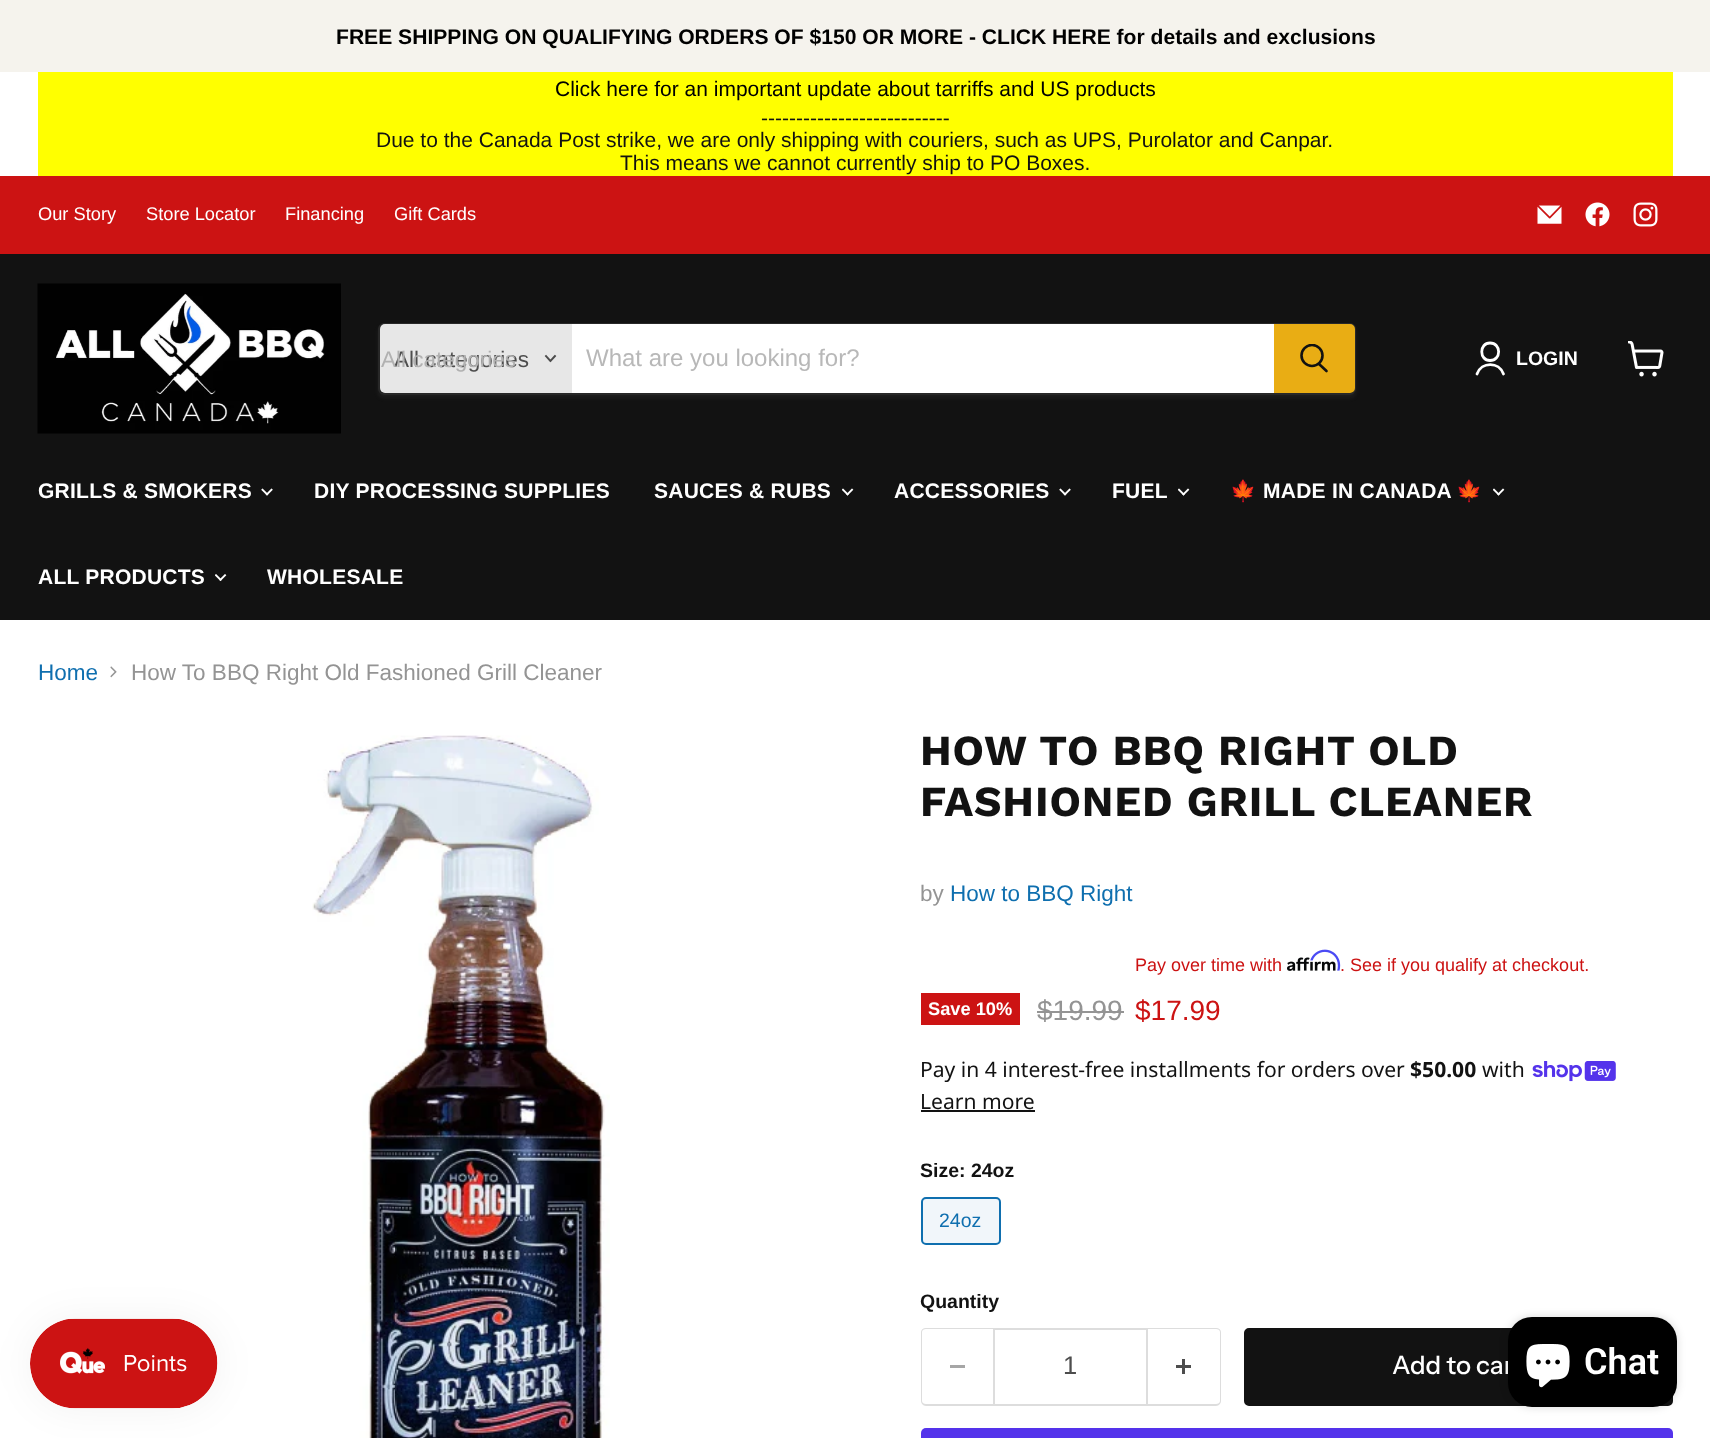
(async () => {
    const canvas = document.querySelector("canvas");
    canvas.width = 1710;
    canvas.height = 1438;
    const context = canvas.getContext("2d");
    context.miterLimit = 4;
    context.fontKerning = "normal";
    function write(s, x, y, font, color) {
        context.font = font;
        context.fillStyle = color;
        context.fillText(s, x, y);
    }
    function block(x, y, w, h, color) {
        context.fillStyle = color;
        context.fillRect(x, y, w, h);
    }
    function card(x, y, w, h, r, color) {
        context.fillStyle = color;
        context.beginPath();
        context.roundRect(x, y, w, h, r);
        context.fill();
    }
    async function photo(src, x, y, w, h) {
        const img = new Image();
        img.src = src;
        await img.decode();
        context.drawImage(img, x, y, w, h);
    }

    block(0, 0, 1710, 1438, "rgb(255, 255, 255)");
    block(0, 0, 1710, 72, "rgb(245, 243, 237)");
    write("FREE SHIPPING ON QUALIFYING ORDERS OF $150 OR MORE - CLICK HERE for details and exclusions", 336, 44, "bold 21.1px Liberation Sans", "rgb(0, 0, 0)");
    block(38, 72, 1635, 104, "rgb(255, 255, 0)");
    write("Click here for an important update about tarriffs and US products", 555, 96, "21px Liberation Sans", "rgb(0, 0, 0)");
    write("---------------------------", 761, 125, "21px Liberation Sans", "rgb(18, 18, 18)");
    write("Due to the Canada Post strike, we are only shipping with couriers, such as UPS, Purolator and Canpar.", 376, 147, "21px Liberation Sans", "rgb(18, 18, 18)");
    write("This means we cannot currently ship to PO Boxes.", 620, 170, "21px Liberation Sans", "rgb(18, 18, 18)");
    block(0, 176, 1710, 78, "rgb(204, 19, 19)");
    write("Our Story", 38, 220, "18.25px Liberation Sans", "rgb(255, 255, 255)");
    write("Store Locator", 146, 220, "18.25px Liberation Sans", "rgb(255, 255, 255)");
    write("Financing", 285, 220, "18.25px Liberation Sans", "rgb(255, 255, 255)");
    write("Gift Cards", 394, 220, "18.25px Liberation Sans", "rgb(255, 255, 255)");
    await photo("media/1.png", 1537, 205, 25, 19);
    await photo("media/2.png", 1585, 202, 25, 25);
    await photo("media/3.png", 1633, 202, 25, 25);
    block(0, 254, 1710, 366, "rgb(18, 18, 18)");
    await photo("media/4.png", 37, 283, 304, 151);
    context.save();
    context.beginPath();
    context.moveTo(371, 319);
    context.lineTo(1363, 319);
    context.lineTo(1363, 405);
    context.lineTo(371, 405);
    context.closePath();
    context.moveTo(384, 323);
    context.lineTo(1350, 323);
    context.bezierCurveTo(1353.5, 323, 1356, 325.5, 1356, 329);
    context.lineTo(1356, 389);
    context.bezierCurveTo(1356, 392.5, 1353.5, 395, 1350, 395);
    context.lineTo(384, 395);
    context.bezierCurveTo(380.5, 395, 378, 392.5, 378, 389);
    context.lineTo(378, 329);
    context.bezierCurveTo(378, 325.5, 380.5, 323, 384, 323);
    context.closePath();
    context.clip("evenodd");
    context.fillStyle = "rgba(128, 128, 128, 0.11)";
    context.filter = "blur(2px)";
    context.beginPath();
    context.roundRect(378, 326, 978, 72, 6);
    context.fill();
    context.filter = "none";
    context.restore();
    context.beginPath();
    context.roundRect(379, 324, 976, 70, 5);
    context.strokeStyle = "rgba(128, 128, 128, 0.2)";
    context.lineWidth = 2;
    context.stroke();
    context.fillStyle = "rgb(231, 231, 231)";
    context.beginPath();
    context.roundRect(380, 324, 192, 69, [5, 0, 0, 5]);
    context.fill();
    write("All categories", 394, 367, "22.5px Liberation Sans", "rgb(77, 77, 77)");
    write("All categories", 381, 367, "22.5px Liberation Sans", "rgb(177, 177, 177)");
    context.beginPath();
    context.moveTo(550.5, 361);
    context.lineTo(555, 356);
    context.moveTo(550.5, 361);
    context.lineTo(546, 356);
    context.strokeStyle = "rgb(77, 77, 77)";
    context.lineWidth = 1.9;
    context.lineCap = "square";
    context.stroke();
    block(572, 324, 702, 69, "rgb(255, 255, 255)");
    write("What are you looking for?", 586, 366, "24px Liberation Sans", "rgb(184, 184, 184)");
    context.fillStyle = "rgb(233, 173, 20)";
    context.beginPath();
    context.roundRect(1275, 325, 79, 67, [0, 4, 4, 0]);
    context.fill();
    context.strokeStyle = "rgb(233, 173, 20)";
    context.lineWidth = 2;
    context.stroke();
    context.beginPath();
    context.moveTo(1326.5, 371);
    context.lineTo(1319, 364);
    context.strokeStyle = "rgb(18, 18, 18)";
    context.lineWidth = 2.6;
    context.lineCap = "round";
    context.stroke();
    context.save();
    context.beginPath();
    context.rect(1299, 344, 30, 31);
    context.clip();
    context.beginPath();
    context.arc(1312, 355.5, 10.5, 0, Math.PI * 2);
    context.stroke();
    context.restore();
    context.beginPath();
    context.moveTo(1490, 360.5);
    context.bezierCurveTo(1501.5, 360.5, 1501.5, 343, 1490, 343);
    context.bezierCurveTo(1479, 343, 1479, 360.5, 1490, 360.5);
    context.closePath();
    context.moveTo(1503.5, 374);
    context.bezierCurveTo(1499, 361.5, 1481.5, 361.5, 1477, 374);
    context.strokeStyle = "rgb(255, 255, 255)";
    context.lineWidth = 2.8;
    context.lineJoin = "round";
    context.stroke();
    write("LOGIN", 1516, 365, "bold 19.5px Liberation Sans", "rgb(255, 255, 255)");
    await photo("media/5.png", 1628, 341, 36, 36);
    context.letterSpacing = "0.25px";
    write("GRILLS & SMOKERS", 38, 498, "bold 21px Liberation Sans", "rgb(255, 255, 255)");
    await photo("media/6.png", 261, 488, 12, 8);
    write("DIY PROCESSING SUPPLIES", 314, 498, "bold 21px Liberation Sans", "rgb(255, 255, 255)");
    write("SAUCES & RUBS", 654, 498, "bold 21px Liberation Sans", "rgb(255, 255, 255)");
    await photo("media/7.png", 842, 488, 12, 8);
    write("ACCESSORIES", 894, 498, "bold 21px Liberation Sans", "rgb(255, 255, 255)");
    await photo("media/6.png", 1059, 488, 12, 8);
    write("FUEL", 1112, 498, "bold 21px Liberation Sans", "rgb(255, 255, 255)");
    await photo("media/7.png", 1178, 488, 12, 8);
    write("🍁", 1230, 498, "bold 21px Noto Color Emoji", "rgb(255, 255, 255)");
    write("MADE IN CANADA", 1263, 498, "bold 21px Liberation Sans", "rgb(255, 255, 255)");
    write("🍁", 1456, 498, "bold 21px Noto Color Emoji", "rgb(255, 255, 255)");
    await photo("media/7.png", 1493, 488, 12, 8);
    write("ALL PRODUCTS", 38, 584, "bold 21px Liberation Sans", "rgb(255, 255, 255)");
    await photo("media/8.png", 215, 574, 12, 7);
    write("WHOLESALE", 267, 584, "bold 21px Liberation Sans", "rgb(255, 255, 255)");
    context.letterSpacing = "0px";
    write("Home", 38, 680, "22.5px Liberation Sans", "rgb(15, 111, 175)");
    await photo("media/9.png", 110, 666, 7, 12);
    write("How To BBQ Right Old Fashioned Grill Cleaner", 131, 680, "22.5px Liberation Sans", "rgb(148, 148, 148)");
    await photo("media/10.png", 312, 735, 298, 703);
    context.letterSpacing = "0.85px";
    write("HOW TO BBQ RIGHT OLD", 920, 765, "bold 42.75px Work Sans", "rgb(18, 18, 18)");
    write("FASHIONED GRILL CLEANER", 920, 816, "bold 42.75px Work Sans", "rgb(18, 18, 18)");
    context.letterSpacing = "0px";
    write("by", 920, 901, "22.5px Liberation Sans", "rgb(148, 148, 148)");
    write("How to BBQ Right", 950, 901, "22.5px Liberation Sans", "rgb(15, 111, 175)");
    block(921, 993, 99, 32, "rgb(204, 19, 19)");
    write("Save 10%", 928, 1015, "bold 18.25px Liberation Sans", "rgb(255, 255, 255)");
    write("$19.99", 1037, 1020, "28px Liberation Sans", "rgb(148, 148, 148)");
    block(1037, 1011, 87, 2, "rgb(148, 148, 148)");
    write("Pay over time with", 1135, 971, "18px Liberation Sans", "rgb(204, 19, 19)");
    await photo("media/12.png", 1287, 957, 49, 14);
    await photo("media/11.png", 1310, 949, 31, 22);
    write(". See if you qualify at checkout.", 1340, 971, "18px Liberation Sans", "rgb(204, 19, 19)");
    write("$17.99", 1135, 1020, "28px Liberation Sans", "rgb(204, 19, 19)");
    write("Pay in 4 interest-free installments for orders over", 920, 1077, "21.1px Noto Sans", "rgb(18, 18, 18)");
    write("$50.00", 1410, 1077, "bold 21.1px Noto Sans", "rgb(18, 18, 18)");
    write("with", 1482, 1077, "21.1px Noto Sans", "rgb(18, 18, 18)");
    await photo("media/13.png", 1532, 1061, 84, 21);
    write("Learn more", 920, 1109, "21.1px Noto Sans", "rgb(18, 18, 18)");
    block(921, 1110, 114, 2, "rgb(18, 18, 18)");
    write("Size: 24oz", 920, 1177, "bold 19.5px Liberation Sans", "rgb(18, 18, 18)");
    context.fillStyle = "rgb(241, 246, 250)";
    context.beginPath();
    context.roundRect(922, 1198, 78, 46, 4);
    context.fill();
    context.strokeStyle = "rgb(15, 111, 175)";
    context.lineWidth = 2;
    context.lineJoin = "miter";
    context.stroke();
    write("24oz", 939, 1227, "19.5px Liberation Sans", "rgb(15, 111, 175)");
    write("Quantity", 920, 1308, "bold 19.5px Liberation Sans", "rgb(18, 18, 18)");
    context.fillStyle = "rgb(221, 221, 221)";
    context.beginPath();
    context.moveTo(926, 1328);
    context.lineTo(993, 1328);
    context.lineTo(993, 1406);
    context.lineTo(926, 1406);
    context.bezierCurveTo(923, 1406, 921, 1403, 921, 1401);
    context.lineTo(921, 1332);
    context.bezierCurveTo(921, 1330, 923, 1328, 926, 1328);
    context.closePath();
    context.moveTo(926, 1329);
    context.lineTo(993, 1329);
    context.lineTo(993, 1404);
    context.lineTo(926, 1404);
    context.bezierCurveTo(924, 1404, 922, 1403, 922, 1401);
    context.lineTo(922, 1332);
    context.bezierCurveTo(922, 1330, 924, 1329, 926, 1329);
    context.closePath();
    context.fill("evenodd");
    block(950, 1365, 15, 3, "rgb(166, 166, 166)");
    context.strokeStyle = "rgb(221, 221, 221)";
    context.strokeRect(994, 1329, 153, 76);
    write("1", 1063, 1374, "25.5px Liberation Sans", "rgb(77, 77, 77)");
    context.fillStyle = "rgb(221, 221, 221)";
    context.beginPath();
    context.moveTo(1148, 1328);
    context.lineTo(1216, 1328);
    context.bezierCurveTo(1219, 1328, 1221, 1330, 1221, 1332);
    context.lineTo(1221, 1401);
    context.bezierCurveTo(1221, 1403, 1219, 1406, 1216, 1406);
    context.lineTo(1148, 1406);
    context.closePath();
    context.moveTo(1148, 1329);
    context.lineTo(1216, 1329);
    context.bezierCurveTo(1218, 1329, 1220, 1330, 1220, 1332);
    context.lineTo(1220, 1401);
    context.bezierCurveTo(1220, 1403, 1218, 1404, 1216, 1404);
    context.lineTo(1148, 1404);
    context.closePath();
    context.fill("evenodd");
    await photo("media/14.png", 1176, 1359, 15, 15);
    context.fillStyle = "rgb(18, 18, 18)";
    context.beginPath();
    context.roundRect(1245, 1329, 427, 76, 4);
    context.fill();
    context.strokeStyle = "rgb(18, 18, 18)";
    context.stroke();
    write("Add to car", 1392, 1374, "500 25.5px Instrument Sans", "rgb(255, 255, 255)");
    card(921, 1428, 752, 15, 5, "rgb(84, 51, 235)");
    context.fillStyle = "rgba(0, 0, 0, 0.05)";
    context.filter = "blur(19px)";
    context.beginPath();
    context.roundRect(30, 1319, 188, 90, 45);
    context.fill();
    context.filter = "none";
    await photo("media/15.png", 30, 1318, 188, 91);
    context.fillStyle = "rgba(0, 0, 0, 0.15)";
    context.filter = "blur(4px)";
    context.beginPath();
    context.roundRect(1508, 1317, 169, 90, 24);
    context.fill();
    context.filter = "none";
    card(1508, 1317, 169, 90, 24, "rgb(0, 0, 0)");
    await photo("media/16.png", 1526, 1344, 44, 44);
    write("Chat", 1584, 1374, "600 36px Roboto", "rgb(255, 255, 255)");
})();
